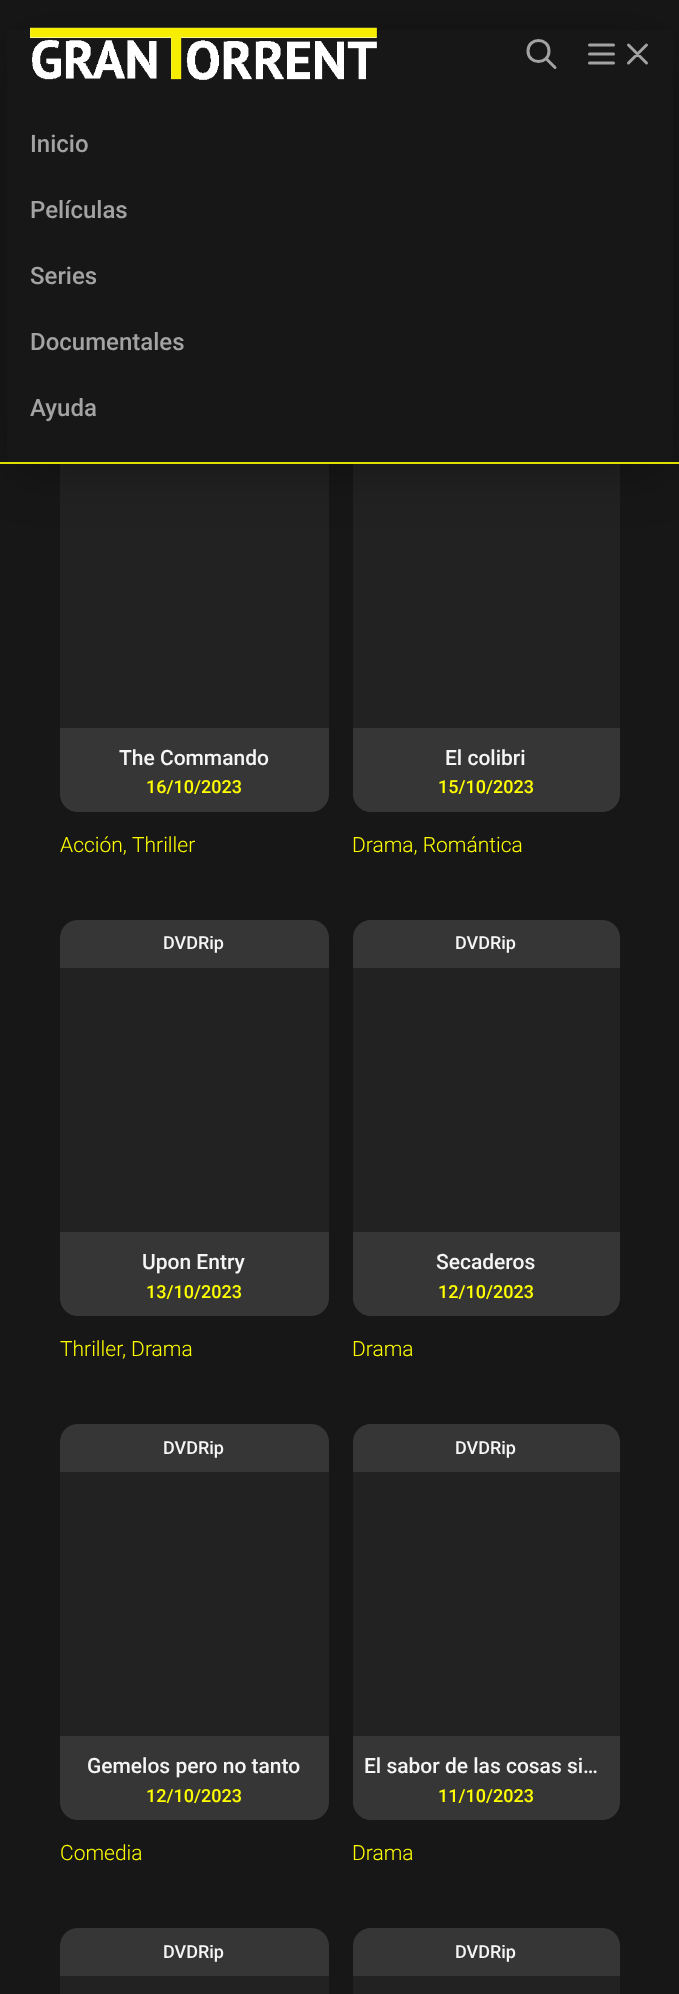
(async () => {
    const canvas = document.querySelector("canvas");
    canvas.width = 679;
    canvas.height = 1994;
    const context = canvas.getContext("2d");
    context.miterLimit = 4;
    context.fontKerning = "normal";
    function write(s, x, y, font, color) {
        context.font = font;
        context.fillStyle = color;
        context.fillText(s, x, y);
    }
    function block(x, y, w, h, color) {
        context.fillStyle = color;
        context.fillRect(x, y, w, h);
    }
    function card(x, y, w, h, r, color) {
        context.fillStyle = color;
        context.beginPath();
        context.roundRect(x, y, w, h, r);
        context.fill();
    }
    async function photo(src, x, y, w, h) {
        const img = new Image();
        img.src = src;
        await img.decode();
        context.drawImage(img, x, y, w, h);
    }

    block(0, 0, 679, 1994, "rgb(23, 23, 23)");
    card(60, 416, 269, 396, 18, "rgb(34, 34, 34)");
    card(353, 416, 267, 396, 18, "rgb(34, 34, 34)");
    context.fillStyle = "rgba(0, 0, 0, 0.3)";
    context.filter = "blur(26px)";
    context.beginPath();
    context.rect(15, 38, 650, 433);
    context.fill();
    context.filter = "none";
    block(7, 30, 666, 432, "rgb(23, 23, 23)");
    block(0, 462, 679, 2, "rgb(223, 223, 0)");
    await photo("media/1.png", 30, 27, 347, 53);
    context.beginPath();
    context.moveTo(555, 67.5);
    context.lineTo(546, 58.5);
    context.moveTo(549, 51);
    context.bezierCurveTo(549, 65, 528, 65, 528, 51);
    context.bezierCurveTo(528, 37, 549, 37, 549, 51);
    context.closePath();
    context.strokeStyle = "rgb(163, 163, 163)";
    context.lineWidth = 3;
    context.lineCap = "round";
    context.lineJoin = "round";
    context.stroke();
    context.beginPath();
    context.moveTo(589.5, 45);
    context.lineTo(613.5, 45);
    context.moveTo(589.5, 54);
    context.lineTo(613.5, 54);
    context.moveTo(589.5, 63);
    context.lineTo(613.5, 63);
    context.moveTo(628.5, 63);
    context.lineTo(646.5, 45);
    context.moveTo(628.5, 45);
    context.lineTo(646.5, 63);
    context.stroke();
    write("Inicio", 30, 152, "500 24px Roboto", "rgb(163, 163, 163)");
    write("Películas", 30, 218, "500 24px Roboto", "rgb(163, 163, 163)");
    write("Series", 30, 284, "500 24px Roboto", "rgb(163, 163, 163)");
    write("Documentales", 30, 350, "500 24px Roboto", "rgb(163, 163, 163)");
    write("Ayuda", 30, 416, "500 24px Roboto", "rgb(163, 163, 163)");
    context.fillStyle = "rgba(57, 57, 57, 0.85)";
    context.beginPath();
    context.roundRect(60, 728, 269, 84, [0, 0, 18, 18]);
    context.fill();
    write("The Commando", 119, 765, "500 21px Roboto", "rgb(245, 245, 245)");
    write("16/10/2023", 146, 793, "500 18px Roboto", "rgb(255, 255, 0)");
    write("Acción,", 60, 852, "300 21px Roboto", "rgb(255, 255, 0)");
    write("Thriller", 132, 852, "300 21px Roboto", "rgb(255, 255, 0)");
    context.fillStyle = "rgba(57, 57, 57, 0.85)";
    context.beginPath();
    context.roundRect(353, 728, 267, 84, [0, 0, 18, 18]);
    context.fill();
    write("El colibri", 445, 765, "500 21px Roboto", "rgb(245, 245, 245)");
    write("15/10/2023", 438, 793, "500 18px Roboto", "rgb(255, 255, 0)");
    write("Drama, Romántica", 352, 852, "300 21px Roboto", "rgb(255, 255, 0)");
    card(60, 920, 269, 396, 18, "rgb(34, 34, 34)");
    context.fillStyle = "rgba(57, 57, 57, 0.85)";
    context.beginPath();
    context.roundRect(60, 920, 269, 48, [18, 18, 0, 0]);
    context.fill();
    write("DVDRip", 163, 949, "500 18px Roboto", "rgb(245, 245, 245)");
    context.fillStyle = "rgba(57, 57, 57, 0.85)";
    context.beginPath();
    context.roundRect(60, 1232, 269, 84, [0, 0, 18, 18]);
    context.fill();
    write("Upon Entry", 142, 1269, "500 21px Roboto", "rgb(245, 245, 245)");
    write("13/10/2023", 146, 1298, "500 18px Roboto", "rgb(255, 255, 0)");
    write("Thriller, Drama", 60, 1356, "300 21px Roboto", "rgb(255, 255, 0)");
    card(353, 920, 267, 396, 18, "rgb(34, 34, 34)");
    context.fillStyle = "rgba(57, 57, 57, 0.85)";
    context.beginPath();
    context.roundRect(353, 920, 267, 48, [18, 18, 0, 0]);
    context.fill();
    write("DVDRip", 455, 949, "500 18px Roboto", "rgb(245, 245, 245)");
    context.fillStyle = "rgba(57, 57, 57, 0.85)";
    context.beginPath();
    context.roundRect(353, 1232, 267, 84, [0, 0, 18, 18]);
    context.fill();
    write("Secaderos", 436, 1269, "500 21px Roboto", "rgb(245, 245, 245)");
    write("12/10/2023", 438, 1298, "500 18px Roboto", "rgb(255, 255, 0)");
    write("Drama", 352, 1356, "300 21px Roboto", "rgb(255, 255, 0)");
    card(60, 1424, 269, 396, 18, "rgb(34, 34, 34)");
    context.fillStyle = "rgba(57, 57, 57, 0.85)";
    context.beginPath();
    context.roundRect(60, 1424, 269, 48, [18, 18, 0, 0]);
    context.fill();
    write("DVDRip", 163, 1454, "500 18px Roboto", "rgb(245, 245, 245)");
    context.fillStyle = "rgba(57, 57, 57, 0.85)";
    context.beginPath();
    context.roundRect(60, 1736, 269, 84, [0, 0, 18, 18]);
    context.fill();
    write("Gemelos pero no tanto", 87, 1773, "500 21px Roboto", "rgb(245, 245, 245)");
    write("12/10/2023", 146, 1802, "500 18px Roboto", "rgb(255, 255, 0)");
    write("Comedia", 60, 1860, "300 21px Roboto", "rgb(255, 255, 0)");
    card(353, 1424, 267, 396, 18, "rgb(34, 34, 34)");
    context.fillStyle = "rgba(57, 57, 57, 0.85)";
    context.beginPath();
    context.roundRect(353, 1424, 267, 48, [18, 18, 0, 0]);
    context.fill();
    write("DVDRip", 455, 1454, "500 18px Roboto", "rgb(245, 245, 245)");
    context.fillStyle = "rgba(57, 57, 57, 0.85)";
    context.beginPath();
    context.roundRect(353, 1736, 267, 84, [0, 0, 18, 18]);
    context.fill();
    write("El sabor de las cosas si…", 364, 1773, "500 21px Roboto", "rgb(245, 245, 245)");
    write("11/10/2023", 438, 1802, "500 18px Roboto", "rgb(255, 255, 0)");
    write("Drama", 352, 1860, "300 21px Roboto", "rgb(255, 255, 0)");
    card(60, 1928, 269, 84, 18, "rgb(34, 34, 34)");
    context.fillStyle = "rgba(57, 57, 57, 0.85)";
    context.beginPath();
    context.roundRect(60, 1928, 269, 48, [18, 18, 0, 0]);
    context.fill();
    write("DVDRip", 163, 1958, "500 18px Roboto", "rgb(245, 245, 245)");
    card(353, 1928, 267, 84, 18, "rgb(34, 34, 34)");
    context.fillStyle = "rgba(57, 57, 57, 0.85)";
    context.beginPath();
    context.roundRect(353, 1928, 267, 48, [18, 18, 0, 0]);
    context.fill();
    write("DVDRip", 455, 1958, "500 18px Roboto", "rgb(245, 245, 245)");
})();
